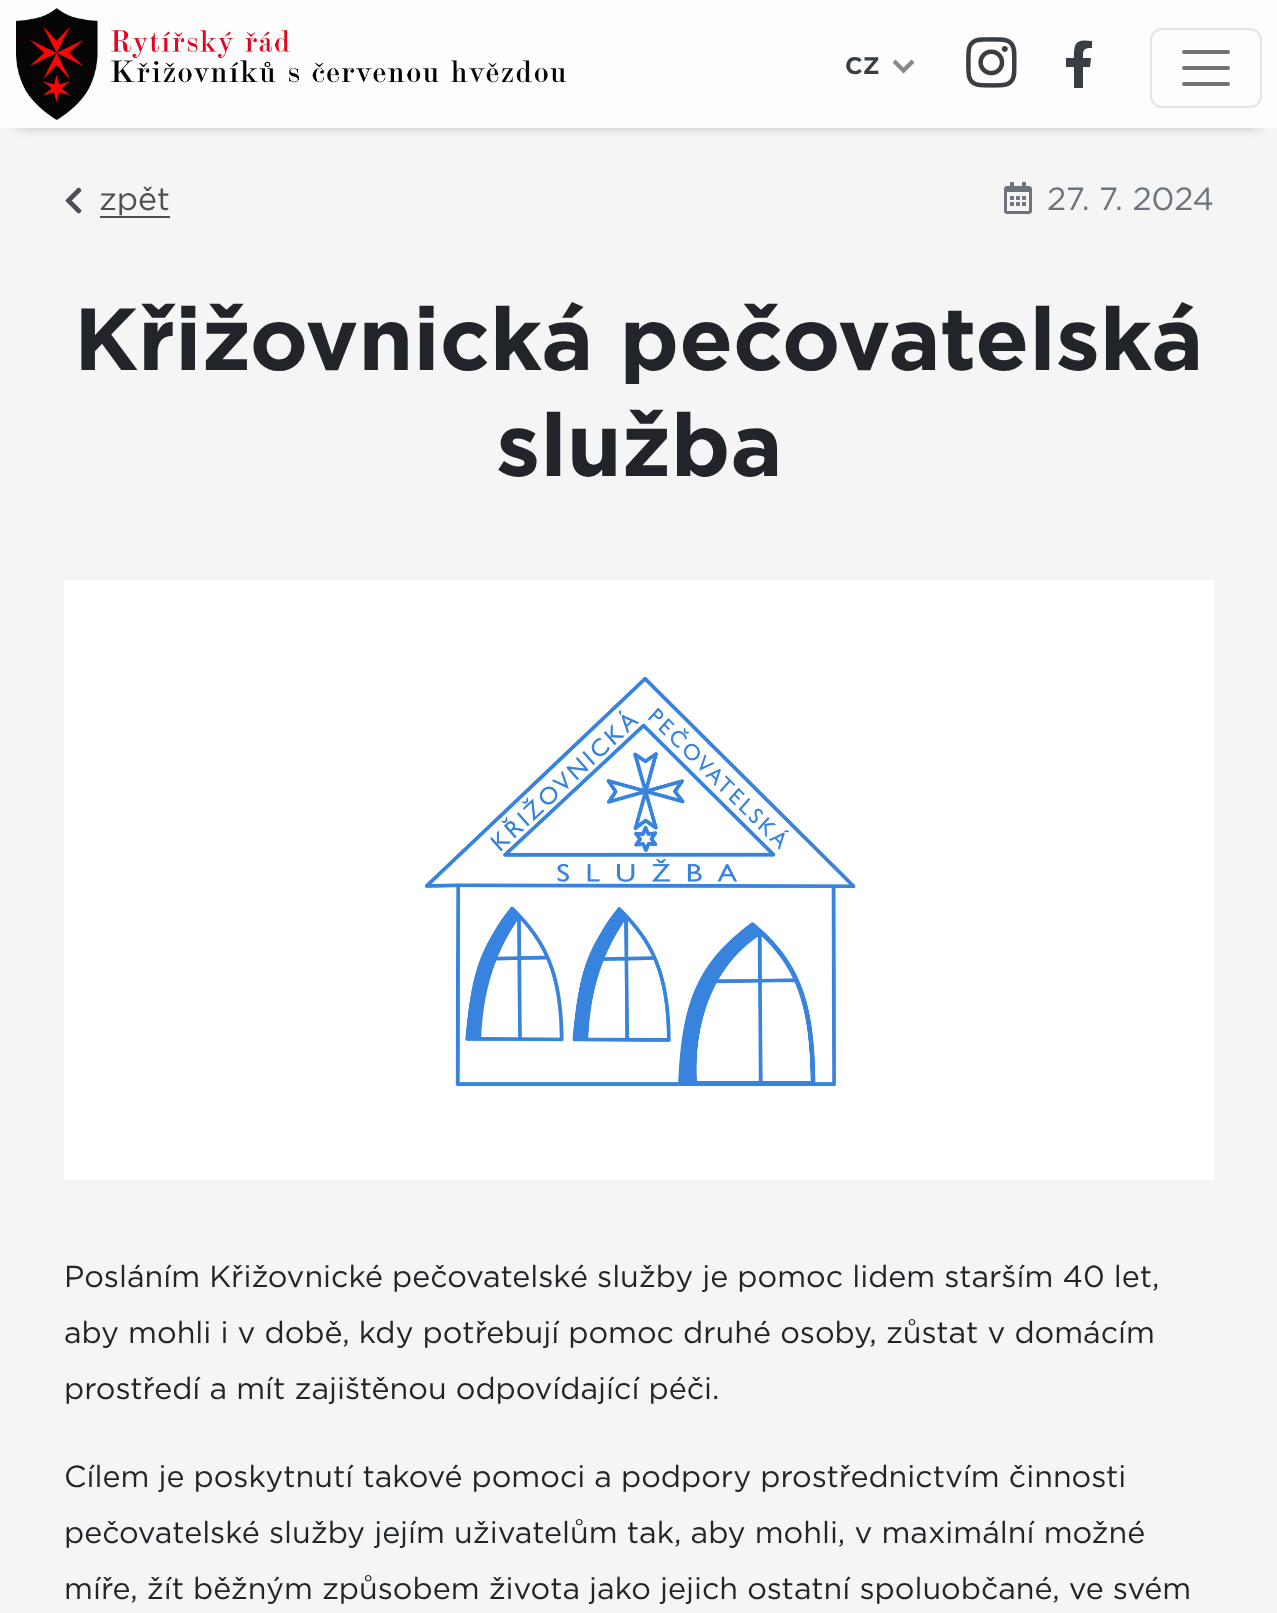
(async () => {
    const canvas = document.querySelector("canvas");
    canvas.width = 1277;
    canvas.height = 1613;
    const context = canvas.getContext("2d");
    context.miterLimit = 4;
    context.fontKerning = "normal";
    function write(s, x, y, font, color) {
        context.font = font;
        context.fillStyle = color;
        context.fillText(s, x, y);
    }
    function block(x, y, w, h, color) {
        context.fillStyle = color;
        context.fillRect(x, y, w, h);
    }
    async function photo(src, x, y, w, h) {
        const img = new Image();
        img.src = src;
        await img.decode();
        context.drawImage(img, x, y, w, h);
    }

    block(0, 0, 1277, 1613, "rgb(245, 245, 245)");
    context.fillStyle = "rgb(171, 171, 171)";
    context.filter = "blur(6px)";
    context.beginPath();
    context.rect(18, 34, 1242, 92);
    context.fill();
    context.filter = "none";
    block(0, 0, 1277, 128, "rgb(254, 253, 253)");
    await photo("media/1.png", 16, 8, 550, 112);
    write("CZ", 845, 74, "bold 24px Gotham", "rgb(56, 62, 68)");
    context.fillStyle = "rgb(137, 137, 137)";
    context.beginPath();
    context.moveTo(911.5, 59.5);
    context.lineTo(903.5, 67.5);
    context.lineTo(895.5, 59.5);
    context.lineTo(892.5, 62.5);
    context.lineTo(903.5, 73.5);
    context.lineTo(914.5, 62.5);
    context.closePath();
    context.fill();
    await photo("media/2.png", 966, 37, 51, 51);
    context.fillStyle = "rgb(56, 62, 68)";
    context.beginPath();
    context.moveTo(1090, 67);
    context.lineTo(1083, 67);
    context.lineTo(1083, 88);
    context.lineTo(1074, 88);
    context.lineTo(1074, 67);
    context.lineTo(1066, 67);
    context.lineTo(1066, 58);
    context.lineTo(1074, 58);
    context.bezierCurveTo(1074, 42, 1076, 39, 1092, 41);
    context.lineTo(1092, 48);
    context.bezierCurveTo(1083, 48, 1083, 50, 1083, 58);
    context.lineTo(1091, 58);
    context.closePath();
    context.fill();
    context.beginPath();
    context.roundRect(1151, 29, 110, 78, 11);
    context.strokeStyle = "rgb(229, 228, 228)";
    context.lineWidth = 2;
    context.stroke();
    context.beginPath();
    context.moveTo(1184, 52);
    context.lineTo(1228, 52);
    context.moveTo(1184, 68);
    context.lineTo(1228, 68);
    context.moveTo(1184, 84);
    context.lineTo(1228, 84);
    context.strokeStyle = "rgb(117, 117, 117)";
    context.lineWidth = 4;
    context.lineCap = "round";
    context.stroke();
    await photo("media/3.png", 65, 187, 17, 27);
    write("zpět", 99, 210, "32px Gotham", "rgb(73, 80, 87)");
    block(100, 216, 70, 2, "rgb(73, 80, 87)");
    await photo("media/4.png", 1004, 182, 28, 32);
    write("27. 7. 2024", 1047, 210, "32px Gotham", "rgb(108, 117, 125)");
    write("Křižovnická pečovatelská", 74, 370, "bold 88px Gotham", "rgb(33, 37, 41)");
    write("služba", 496, 476, "bold 88px Gotham", "rgb(33, 37, 41)");
    await photo("media/5.png", 64, 580, 1150, 600);
    write("Posláním Křižovnické pečovatelské služby je pomoc lidem starším 40 let,", 64, 1287, "30.4px Gotham", "rgb(33, 37, 41)");
    write("aby mohli i v době, kdy potřebují pomoc druhé osoby, zůstat v domácím", 64, 1343, "30.4px Gotham", "rgb(33, 37, 41)");
    write("prostředí a mít zajištěnou odpovídající péči.", 64, 1399, "30.4px Gotham", "rgb(33, 37, 41)");
    write("Cílem je poskytnutí takové pomoci a podpory prostřednictvím činnosti", 64, 1487, "30.4px Gotham", "rgb(33, 37, 41)");
    write("pečovatelské služby jejím uživatelům tak, aby mohli, v maximální možné", 64, 1543, "30.4px Gotham", "rgb(33, 37, 41)");
    write("míře, žít běžným způsobem života jako jejich ostatní spoluobčané, ve svém", 64, 1599, "30.4px Gotham", "rgb(33, 37, 41)");
})();
